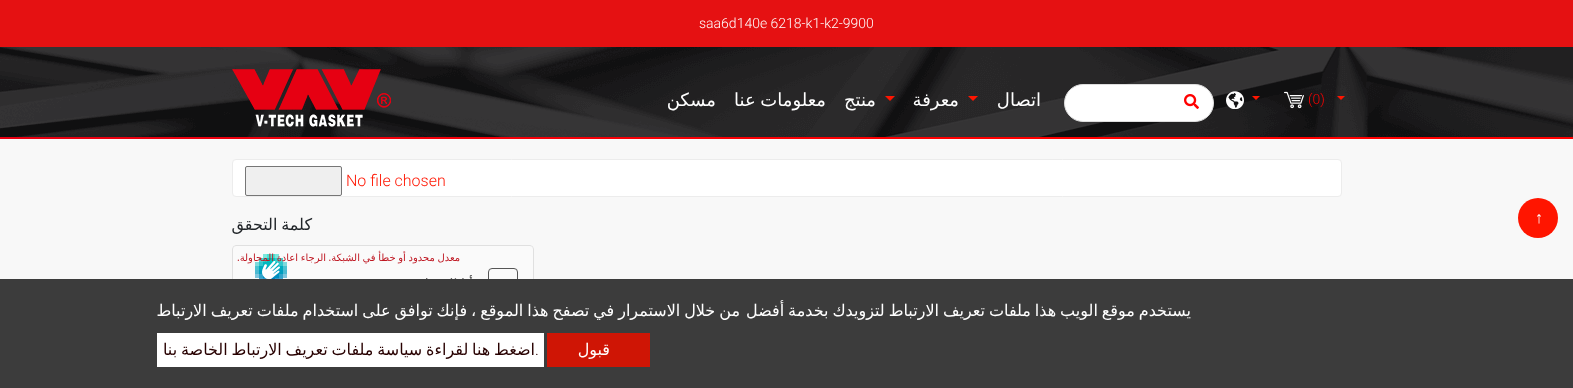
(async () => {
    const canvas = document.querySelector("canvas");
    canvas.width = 1573;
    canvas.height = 388;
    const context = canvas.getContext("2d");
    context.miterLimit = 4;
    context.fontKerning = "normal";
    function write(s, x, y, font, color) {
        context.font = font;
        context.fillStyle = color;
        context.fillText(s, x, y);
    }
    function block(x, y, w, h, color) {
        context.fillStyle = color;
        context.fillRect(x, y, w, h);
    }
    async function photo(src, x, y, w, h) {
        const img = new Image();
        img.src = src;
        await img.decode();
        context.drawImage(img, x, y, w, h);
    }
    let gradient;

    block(0, 0, 1573, 388, "rgb(255, 255, 255)");
    block(0, 0, 1573, 47, "rgb(229, 17, 18)");
    write("saa6d140e 6218-k1-k2-9900", 699, 28, "300 14px Roboto", "rgb(255, 255, 255)");
    await photo("media/1.png", 0, 47, 1573, 90);
    context.fillStyle = "rgb(255, 21, 0)";
    context.beginPath();
    context.moveTo(1337, 96);
    context.lineTo(1345, 96);
    context.lineTo(1341, 100);
    context.closePath();
    context.fill();
    write("(0)", 1308, 104, "300 14px Roboto", "rgb(255, 0, 0)");
    await photo("media/2.png", 1284, 91, 20, 18);
    context.fillStyle = "rgb(255, 21, 0)";
    context.beginPath();
    context.moveTo(1252, 96);
    context.lineTo(1260, 96);
    context.lineTo(1256, 100);
    context.closePath();
    context.fill();
    await photo("media/3.png", 1226, 91, 18, 18);
    context.fillStyle = "rgb(255, 255, 255)";
    context.beginPath();
    context.roundRect(1064.5, 84.5, 149, 37, 18.5);
    context.fill();
    context.strokeStyle = "rgb(221, 221, 221)";
    context.stroke();
    await photo("media/4.png", 1184, 94, 15, 15);
    context.direction = "rtl";
    write("اتصال", 1041, 106, "18px DejaVu Sans", "rgb(255, 255, 255)");
    context.fillStyle = "rgb(255, 21, 0)";
    context.beginPath();
    context.moveTo(968, 96);
    context.lineTo(978, 96);
    context.lineTo(973, 101);
    context.closePath();
    context.fill();
    write("معرفة", 959, 106, "18px DejaVu Sans", "rgb(255, 255, 255)");
    context.fillStyle = "rgb(255, 21, 0)";
    context.beginPath();
    context.moveTo(885, 96);
    context.lineTo(895, 96);
    context.lineTo(890, 101);
    context.closePath();
    context.fill();
    write("منتج", 876, 106, "18px DejaVu Sans", "rgb(255, 255, 255)");
    context.wordSpacing = "-1px";
    write("معلومات عنا", 826, 106, "18px DejaVu Sans", "rgb(255, 255, 255)");
    context.wordSpacing = "0px";
    write("مسكن", 716, 106, "18px DejaVu Sans", "rgb(255, 255, 255)");
    await photo("media/5.png", 232, 69, 159, 58);
    gradient = context.createLinearGradient(0, 138, 1573, 138);
    gradient.addColorStop(0, "rgb(230, 0, 18)");
    gradient.addColorStop(0.65, "rgb(255, 0, 0)");
    context.fillStyle = gradient;
    context.fillRect(0, 137, 1573, 2);
    await photo("media/6.png", 0, 139, 1573, 140);
    context.fillStyle = "rgb(255, 255, 255)";
    context.beginPath();
    context.roundRect(232.5, 159.5, 1109, 37, 3.5);
    context.fill();
    context.strokeStyle = "rgb(236, 236, 236)";
    context.stroke();
    context.direction = "ltr";
    write("No file chosen", 346, 186, "300 16px Roboto", "rgb(255, 21, 0)");
    context.fillStyle = "rgb(239, 239, 239)";
    context.beginPath();
    context.roundRect(245.5, 166.5, 96, 29, 1.5);
    context.fill();
    context.strokeStyle = "rgb(118, 118, 118)";
    context.stroke();
    context.wordSpacing = "-1.25px";
    context.direction = "rtl";
    write("كلمة التحقق", 312, 230, "16px DejaVu Sans", "rgb(33, 37, 41)");
    await photo("media/7.png", 232, 245, 302, 34);
    context.fillStyle = "rgb(255, 21, 0)";
    context.beginPath();
    context.arc(1538, 218, 20, 0, Math.PI * 2);
    context.fill();
    context.wordSpacing = "0px";
    context.direction = "ltr";
    write("↑", 1535, 223, "16px Liberation Serif", "rgb(255, 255, 255)");
    block(0, 279, 1573, 109, "rgb(60, 60, 60)");
    context.wordSpacing = "-1.1px";
    context.direction = "rtl";
    write("من خلال الاستمرار في تصفح هذا الموقع ، فإنك توافق على استخدام ملفات تعريف الارتباط", 740, 316, "16px DejaVu Sans", "rgb(255, 255, 255)");
    write("يستخدم موقع الويب هذا ملفات تعريف الارتباط لتزويدك بخدمة أفضل", 1191, 316, "16px DejaVu Sans", "rgb(255, 255, 255)");
    block(547, 333, 103, 34, "rgb(207, 21, 5)");
    context.wordSpacing = "0px";
    write("قبول", 610, 355, "16px DejaVu Sans", "rgb(255, 255, 255)");
    block(157, 333, 387, 34, "rgb(255, 255, 255)");
    context.wordSpacing = "-1.25px";
    write("اضغط هنا لقراءة سياسة ملفات تعريف الارتباط الخاصة بنا", 535, 355, "16px DejaVu Sans", "rgb(40, 0, 0)");
    context.wordSpacing = "0px";
    context.direction = "ltr";
    write(".", 535, 355, "300 16px Roboto", "rgb(40, 0, 0)");
})();
